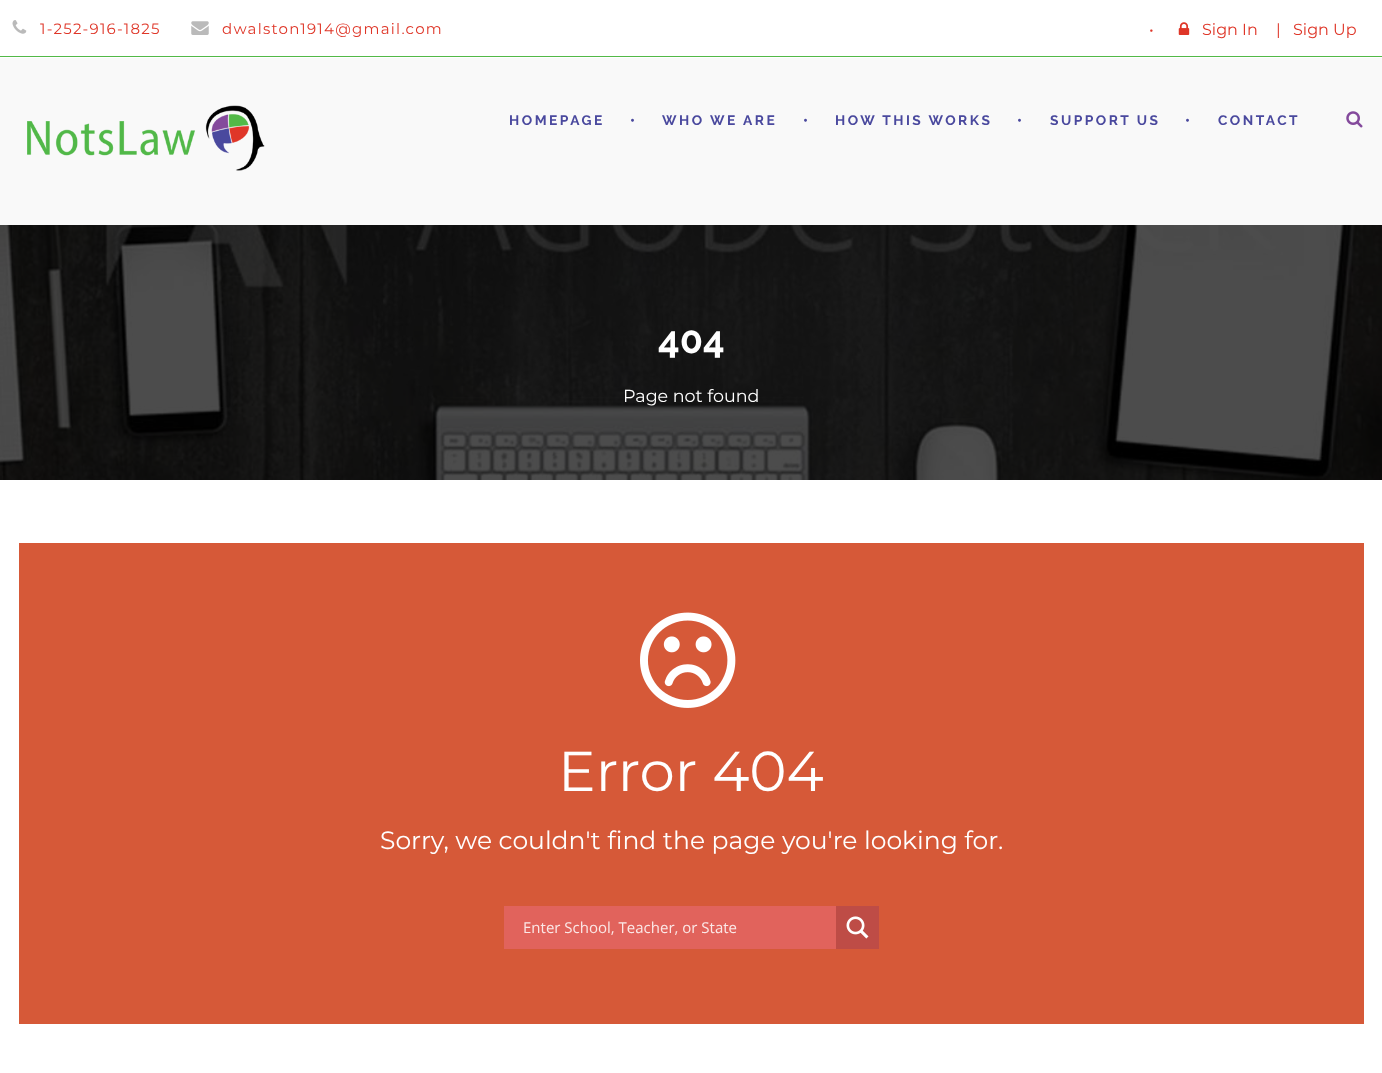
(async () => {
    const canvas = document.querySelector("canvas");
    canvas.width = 1382;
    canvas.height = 1073;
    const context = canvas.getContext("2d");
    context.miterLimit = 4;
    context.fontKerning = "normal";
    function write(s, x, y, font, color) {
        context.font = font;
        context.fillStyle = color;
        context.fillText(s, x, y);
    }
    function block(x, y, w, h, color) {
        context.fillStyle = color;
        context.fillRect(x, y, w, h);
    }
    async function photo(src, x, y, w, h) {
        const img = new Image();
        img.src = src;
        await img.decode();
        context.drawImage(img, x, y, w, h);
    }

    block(0, 0, 1382, 1073, "rgb(255, 255, 255)");
    block(0, 56, 1382, 1, "rgb(82, 185, 71)");
    await photo("media/1.png", 12, 20, 15, 14);
    context.letterSpacing = "1.25px";
    write("1-252-916-1825", 40, 34, "15px Montserrat", "rgb(223, 54, 40)");
    await photo("media/2.png", 191, 21, 18, 14);
    write("dwalston1914@gmail.com", 222, 34, "15px Montserrat", "rgb(223, 54, 40)");
    context.letterSpacing = "0px";
    write("•", 1149, 35, "16px Montserrat", "rgb(223, 54, 40)");
    await photo("media/3.png", 1178, 22, 12, 13);
    write("Sign In", 1202, 35, "16px Montserrat", "rgb(223, 54, 40)");
    write("|", 1276, 35, "16px Montserrat", "rgb(223, 54, 40)");
    write("Sign Up", 1293, 35, "16px Montserrat", "rgb(223, 54, 40)");
    block(0, 58, 1382, 167, "rgb(249, 249, 249)");
    await photo("media/4.png", 27, 105, 238, 66);
    context.letterSpacing = "2.5px";
    write("HOMEPAGE", 509, 125, "bold 13.75px Raleway", "rgb(74, 73, 158)");
    write("•", 630, 125, "bold 13.75px Raleway", "rgb(74, 73, 158)");
    write("WHO WE ARE", 662, 125, "bold 13.75px Raleway", "rgb(74, 73, 158)");
    write("•", 803, 125, "bold 13.75px Raleway", "rgb(74, 73, 158)");
    write("HOW THIS WORKS", 835, 125, "bold 13.75px Raleway", "rgb(74, 73, 158)");
    write("•", 1017, 125, "bold 13.75px Raleway", "rgb(74, 73, 158)");
    write("SUPPORT US", 1050, 125, "bold 13.75px Raleway", "rgb(74, 73, 158)");
    write("•", 1185, 125, "bold 13.75px Raleway", "rgb(74, 73, 158)");
    write("CONTACT", 1218, 125, "bold 13.75px Raleway", "rgb(74, 73, 158)");
    await photo("media/5.png", 1346, 111, 17, 17);
    await photo("media/6.png", 0, 225, 1382, 255);
    context.letterSpacing = "0px";
    write("404", 658, 353, "bold 38px Raleway", "rgb(255, 255, 255)");
    write("Page not found", 623, 402, "17.5px Montserrat", "rgb(255, 255, 255)");
    block(19, 543, 1345, 481, "rgb(214, 89, 56)");
    await photo("media/7.png", 640, 612, 96, 96);
    write("Error 404", 558, 791, "56.25px Montserrat", "rgb(255, 255, 255)");
    write("Sorry, we couldn't find the page you're looking for.", 380, 849, "25px Montserrat", "rgb(255, 255, 255)");
    block(504, 906, 332, 43, "rgb(225, 99, 92)");
    write("Enter School, Teacher, or State", 523, 933, "15px Open Sans", "rgb(251, 232, 231)");
    block(836, 906, 43, 43, "rgb(190, 76, 70)");
    await photo("media/8.png", 846, 916, 23, 23);
})();
